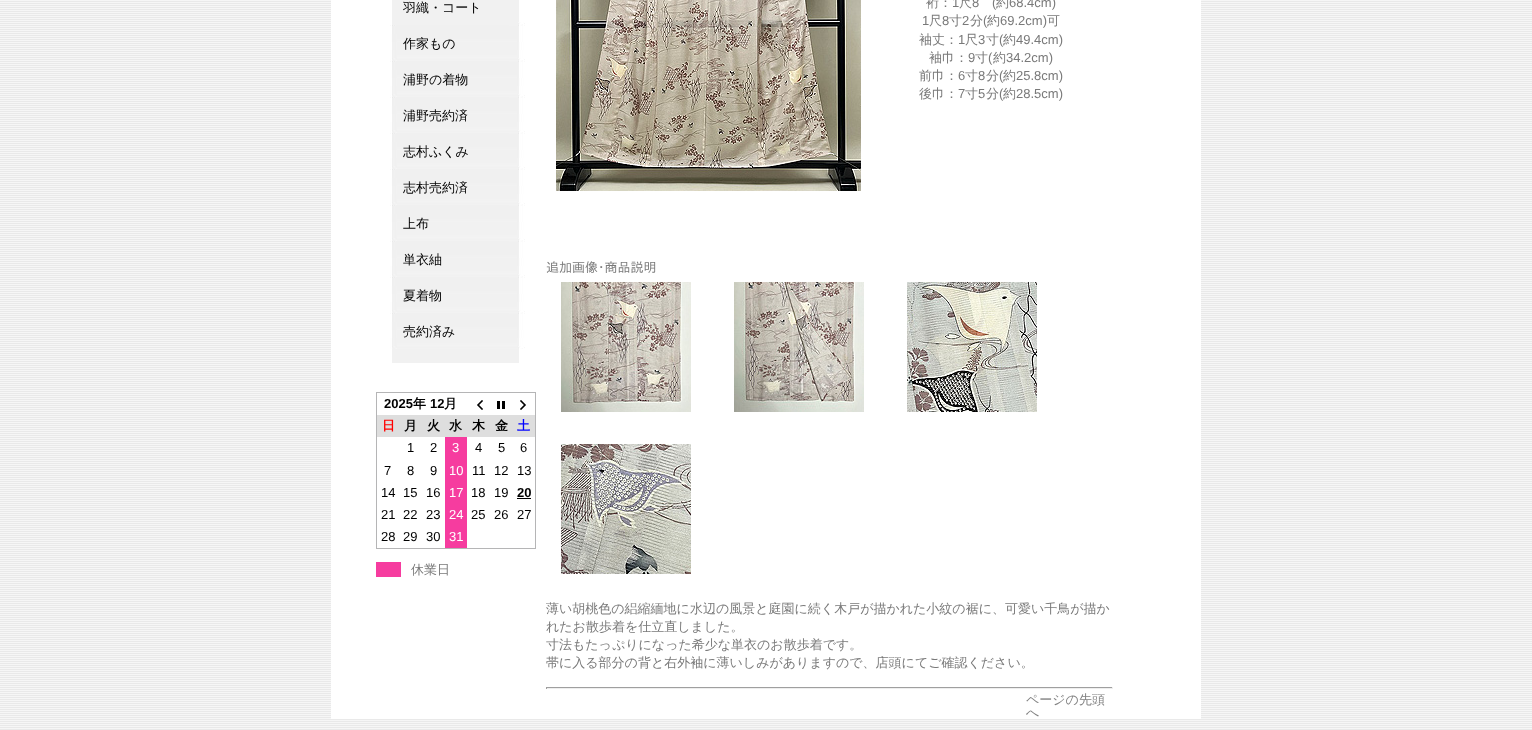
(async () => {
    const canvas = document.querySelector("canvas");
    canvas.width = 1532;
    canvas.height = 730;
    const context = canvas.getContext("2d");
    context.miterLimit = 4;
    context.fontKerning = "normal";
    function write(s, x, y, font, color) {
        context.font = font;
        context.fillStyle = color;
        context.fillText(s, x, y);
    }
    function block(x, y, w, h, color) {
        context.fillStyle = color;
        context.fillRect(x, y, w, h);
    }
    async function photo(src, x, y, w, h) {
        const img = new Image();
        img.src = src;
        await img.decode();
        context.drawImage(img, x, y, w, h);
    }

    block(0, 0, 1532, 730, "rgb(255, 255, 255)");
    await photo("media/1.png", 0, 0, 1532, 730);
    block(331, 0, 870, 719, "rgb(255, 255, 255)");
    block(392, 0, 127, 363, "rgb(241, 241, 241)");
    await photo("media/2.png", 518, 22, 7, 3);
    write("羽織・コート", 403, 12, "500 13px WenQuanYi Zen Hei", "rgb(0, 0, 0)");
    await photo("media/3.png", 390, 25, 135, 36);
    write("作家もの", 403, 48, "500 13px WenQuanYi Zen Hei", "rgb(0, 0, 0)");
    await photo("media/3.png", 390, 61, 135, 36);
    write("浦野の着物", 403, 84, "500 13px WenQuanYi Zen Hei", "rgb(0, 0, 0)");
    await photo("media/3.png", 390, 97, 135, 36);
    write("浦野売約済", 403, 120, "500 13px WenQuanYi Zen Hei", "rgb(0, 0, 0)");
    await photo("media/3.png", 390, 133, 135, 36);
    write("志村ふくみ", 403, 156, "500 13px WenQuanYi Zen Hei", "rgb(0, 0, 0)");
    await photo("media/3.png", 390, 169, 135, 36);
    write("志村売約済", 403, 192, "500 13px WenQuanYi Zen Hei", "rgb(0, 0, 0)");
    await photo("media/3.png", 390, 205, 135, 36);
    write("上布", 403, 228, "500 13px WenQuanYi Zen Hei", "rgb(0, 0, 0)");
    await photo("media/3.png", 390, 241, 135, 36);
    write("単衣紬", 403, 264, "500 13px WenQuanYi Zen Hei", "rgb(0, 0, 0)");
    await photo("media/3.png", 390, 277, 135, 36);
    write("夏着物", 403, 300, "500 13px WenQuanYi Zen Hei", "rgb(0, 0, 0)");
    await photo("media/3.png", 390, 313, 135, 36);
    write("売約済み", 403, 336, "500 13px WenQuanYi Zen Hei", "rgb(0, 0, 0)");
    block(376, 392, 160, 1, "rgb(181, 181, 182)");
    block(535, 392, 1, 157, "rgb(181, 181, 182)");
    block(376, 548, 160, 1, "rgb(181, 181, 182)");
    block(376, 392, 1, 157, "rgb(181, 181, 182)");
    write("2025", 384, 408, "bold 13px Liberation Sans", "rgb(0, 0, 0)");
    write("年", 413, 408, "bold 13px WenQuanYi Zen Hei", "rgb(0, 0, 0)");
    write("12", 430, 408, "bold 13px Liberation Sans", "rgb(0, 0, 0)");
    write("月", 444, 408, "bold 13px WenQuanYi Zen Hei", "rgb(0, 0, 0)");
    await photo("media/4.png", 477, 400, 6, 10);
    await photo("media/5.png", 497, 401, 8, 8);
    await photo("media/6.png", 520, 400, 6, 10);
    block(377, 415, 158, 22, "rgb(222, 222, 222)");
    write("日", 382, 430, "bold 13px WenQuanYi Zen Hei", "rgb(255, 0, 0)");
    write("月", 404, 430, "bold 13px WenQuanYi Zen Hei", "rgb(0, 0, 0)");
    write("火", 427, 430, "bold 13px WenQuanYi Zen Hei", "rgb(0, 0, 0)");
    write("水", 449, 430, "bold 13px WenQuanYi Zen Hei", "rgb(0, 0, 0)");
    write("木", 472, 430, "bold 13px WenQuanYi Zen Hei", "rgb(0, 0, 0)");
    write("金", 495, 430, "bold 13px WenQuanYi Zen Hei", "rgb(0, 0, 0)");
    write("土", 517, 430, "bold 13px WenQuanYi Zen Hei", "rgb(0, 0, 255)");
    write("1", 407, 452, "13px Liberation Sans", "rgb(0, 0, 0)");
    write("2", 430, 452, "13px Liberation Sans", "rgb(0, 0, 0)");
    block(445, 437, 22, 111, "rgb(246, 60, 159)");
    write("3", 452, 452, "13px Liberation Sans", "rgb(255, 255, 255)");
    write("4", 475, 452, "13px Liberation Sans", "rgb(0, 0, 0)");
    write("5", 498, 452, "13px Liberation Sans", "rgb(0, 0, 0)");
    write("6", 520, 452, "13px Liberation Sans", "rgb(0, 0, 0)");
    write("7", 384, 475, "13px Liberation Sans", "rgb(0, 0, 0)");
    write("8", 407, 475, "13px Liberation Sans", "rgb(0, 0, 0)");
    write("9", 430, 475, "13px Liberation Sans", "rgb(0, 0, 0)");
    write("10", 449, 475, "13px Liberation Sans", "rgb(255, 255, 255)");
    write("11", 472, 475, "13px Liberation Sans", "rgb(0, 0, 0)");
    write("12", 494, 475, "13px Liberation Sans", "rgb(0, 0, 0)");
    write("13", 517, 475, "13px Liberation Sans", "rgb(0, 0, 0)");
    write("14", 381, 497, "13px Liberation Sans", "rgb(0, 0, 0)");
    write("15", 403, 497, "13px Liberation Sans", "rgb(0, 0, 0)");
    write("16", 426, 497, "13px Liberation Sans", "rgb(0, 0, 0)");
    write("17", 449, 497, "13px Liberation Sans", "rgb(255, 255, 255)");
    write("18", 471, 497, "13px Liberation Sans", "rgb(0, 0, 0)");
    write("19", 494, 497, "13px Liberation Sans", "rgb(0, 0, 0)");
    write("20", 517, 497, "bold 13px Liberation Sans", "rgb(0, 0, 0)");
    block(517, 498, 14, 1, "rgb(0, 0, 0)");
    write("21", 381, 519, "13px Liberation Sans", "rgb(0, 0, 0)");
    write("22", 403, 519, "13px Liberation Sans", "rgb(0, 0, 0)");
    write("23", 426, 519, "13px Liberation Sans", "rgb(0, 0, 0)");
    write("24", 449, 519, "13px Liberation Sans", "rgb(255, 255, 255)");
    write("25", 471, 519, "13px Liberation Sans", "rgb(0, 0, 0)");
    write("26", 494, 519, "13px Liberation Sans", "rgb(0, 0, 0)");
    write("27", 517, 519, "13px Liberation Sans", "rgb(0, 0, 0)");
    write("28", 381, 541, "13px Liberation Sans", "rgb(0, 0, 0)");
    write("29", 403, 541, "13px Liberation Sans", "rgb(0, 0, 0)");
    write("30", 426, 541, "13px Liberation Sans", "rgb(0, 0, 0)");
    write("31", 449, 541, "13px Liberation Sans", "rgb(255, 255, 255)");
    block(376, 562, 25, 15, "rgb(246, 60, 159)");
    write("休業日", 411, 574, "500 13px WenQuanYi Zen Hei", "rgb(121, 121, 121)");
    await photo("media/7.png", 556, 0, 305, 191);
    write("裄：", 926, 7, "500 13px WenQuanYi Zen Hei", "rgb(121, 121, 121)");
    write("1", 952, 7, "13px Liberation Sans", "rgb(121, 121, 121)");
    write("尺", 959, 7, "500 13px WenQuanYi Zen Hei", "rgb(121, 121, 121)");
    write("8", 972, 7, "13px Liberation Sans", "rgb(121, 121, 121)");
    write("(", 992, 7, "13px Liberation Sans", "rgb(121, 121, 121)");
    write("約", 996, 7, "500 13px WenQuanYi Zen Hei", "rgb(121, 121, 121)");
    write("68.4cm)", 1009, 7, "13px Liberation Sans", "rgb(121, 121, 121)");
    write("1", 922, 25, "13px Liberation Sans", "rgb(121, 121, 121)");
    write("尺", 929, 25, "500 13px WenQuanYi Zen Hei", "rgb(121, 121, 121)");
    write("8", 942, 25, "13px Liberation Sans", "rgb(121, 121, 121)");
    write("寸", 949, 25, "500 13px WenQuanYi Zen Hei", "rgb(121, 121, 121)");
    write("2", 962, 25, "13px Liberation Sans", "rgb(121, 121, 121)");
    write("分", 970, 25, "500 13px WenQuanYi Zen Hei", "rgb(121, 121, 121)");
    write("(", 983, 25, "13px Liberation Sans", "rgb(121, 121, 121)");
    write("約", 987, 25, "500 13px WenQuanYi Zen Hei", "rgb(121, 121, 121)");
    write("69.2cm)", 1000, 25, "13px Liberation Sans", "rgb(121, 121, 121)");
    write("可", 1047, 25, "500 13px WenQuanYi Zen Hei", "rgb(121, 121, 121)");
    write("袖丈：", 919, 44, "500 13px WenQuanYi Zen Hei", "rgb(121, 121, 121)");
    write("1", 958, 44, "13px Liberation Sans", "rgb(121, 121, 121)");
    write("尺", 965, 44, "500 13px WenQuanYi Zen Hei", "rgb(121, 121, 121)");
    write("3", 978, 44, "13px Liberation Sans", "rgb(121, 121, 121)");
    write("寸", 986, 44, "500 13px WenQuanYi Zen Hei", "rgb(121, 121, 121)");
    write("(", 999, 44, "13px Liberation Sans", "rgb(121, 121, 121)");
    write("約", 1003, 44, "500 13px WenQuanYi Zen Hei", "rgb(121, 121, 121)");
    write("49.4cm)", 1016, 44, "13px Liberation Sans", "rgb(121, 121, 121)");
    write("袖巾：", 929, 62, "500 13px WenQuanYi Zen Hei", "rgb(121, 121, 121)");
    write("9", 968, 62, "13px Liberation Sans", "rgb(121, 121, 121)");
    write("寸", 975, 62, "500 13px WenQuanYi Zen Hei", "rgb(121, 121, 121)");
    write("(", 988, 62, "13px Liberation Sans", "rgb(121, 121, 121)");
    write("約", 993, 62, "500 13px WenQuanYi Zen Hei", "rgb(121, 121, 121)");
    write("34.2cm)", 1006, 62, "13px Liberation Sans", "rgb(121, 121, 121)");
    write("前巾：", 919, 80, "500 13px WenQuanYi Zen Hei", "rgb(121, 121, 121)");
    write("6", 958, 80, "13px Liberation Sans", "rgb(121, 121, 121)");
    write("寸", 965, 80, "500 13px WenQuanYi Zen Hei", "rgb(121, 121, 121)");
    write("8", 978, 80, "13px Liberation Sans", "rgb(121, 121, 121)");
    write("分", 986, 80, "500 13px WenQuanYi Zen Hei", "rgb(121, 121, 121)");
    write("(", 999, 80, "13px Liberation Sans", "rgb(121, 121, 121)");
    write("約", 1003, 80, "500 13px WenQuanYi Zen Hei", "rgb(121, 121, 121)");
    write("25.8cm)", 1016, 80, "13px Liberation Sans", "rgb(121, 121, 121)");
    write("後巾：", 919, 98, "500 13px WenQuanYi Zen Hei", "rgb(121, 121, 121)");
    write("7", 958, 98, "13px Liberation Sans", "rgb(121, 121, 121)");
    write("寸", 965, 98, "500 13px WenQuanYi Zen Hei", "rgb(121, 121, 121)");
    write("5", 978, 98, "13px Liberation Sans", "rgb(121, 121, 121)");
    write("分", 986, 98, "500 13px WenQuanYi Zen Hei", "rgb(121, 121, 121)");
    write("(", 999, 98, "13px Liberation Sans", "rgb(121, 121, 121)");
    write("約", 1003, 98, "500 13px WenQuanYi Zen Hei", "rgb(121, 121, 121)");
    write("28.5cm)", 1016, 98, "13px Liberation Sans", "rgb(121, 121, 121)");
    write("追加画像･商品説明", 546, 272, "13px IPAPGothic", "rgb(121, 121, 121)");
    await photo("media/8.png", 561, 282, 130, 130);
    await photo("media/9.png", 734, 282, 130, 130);
    await photo("media/10.png", 907, 282, 130, 130);
    await photo("media/11.png", 561, 444, 130, 130);
    write("薄い胡桃色の絽縮緬地に水辺の風景と庭園に続く木戸が描かれた小紋の裾に、可愛い千鳥が描か", 546, 613, "500 13px WenQuanYi Zen Hei", "rgb(121, 121, 121)");
    write("れたお散歩着を仕立直しました。", 546, 631, "500 13px WenQuanYi Zen Hei", "rgb(121, 121, 121)");
    write("寸法もたっぷりになった希少な単衣のお散歩着です。", 546, 649, "500 13px WenQuanYi Zen Hei", "rgb(121, 121, 121)");
    write("帯に入る部分の背と右外袖に薄いしみがありますので、店頭にてご確認ください。", 546, 667, "500 13px WenQuanYi Zen Hei", "rgb(121, 121, 121)");
    block(546, 687, 567, 1, "rgb(159, 159, 159)");
    block(1112, 687, 1, 2, "rgb(238, 238, 238)");
    block(546, 688, 567, 1, "rgb(238, 238, 238)");
    block(546, 687, 1, 2, "rgb(159, 159, 159)");
    write("ページの先頭", 1026, 704, "500 13px WenQuanYi Zen Hei", "rgb(129, 129, 129)");
    write("へ", 1026, 717, "500 13px WenQuanYi Zen Hei", "rgb(129, 129, 129)");
})();
